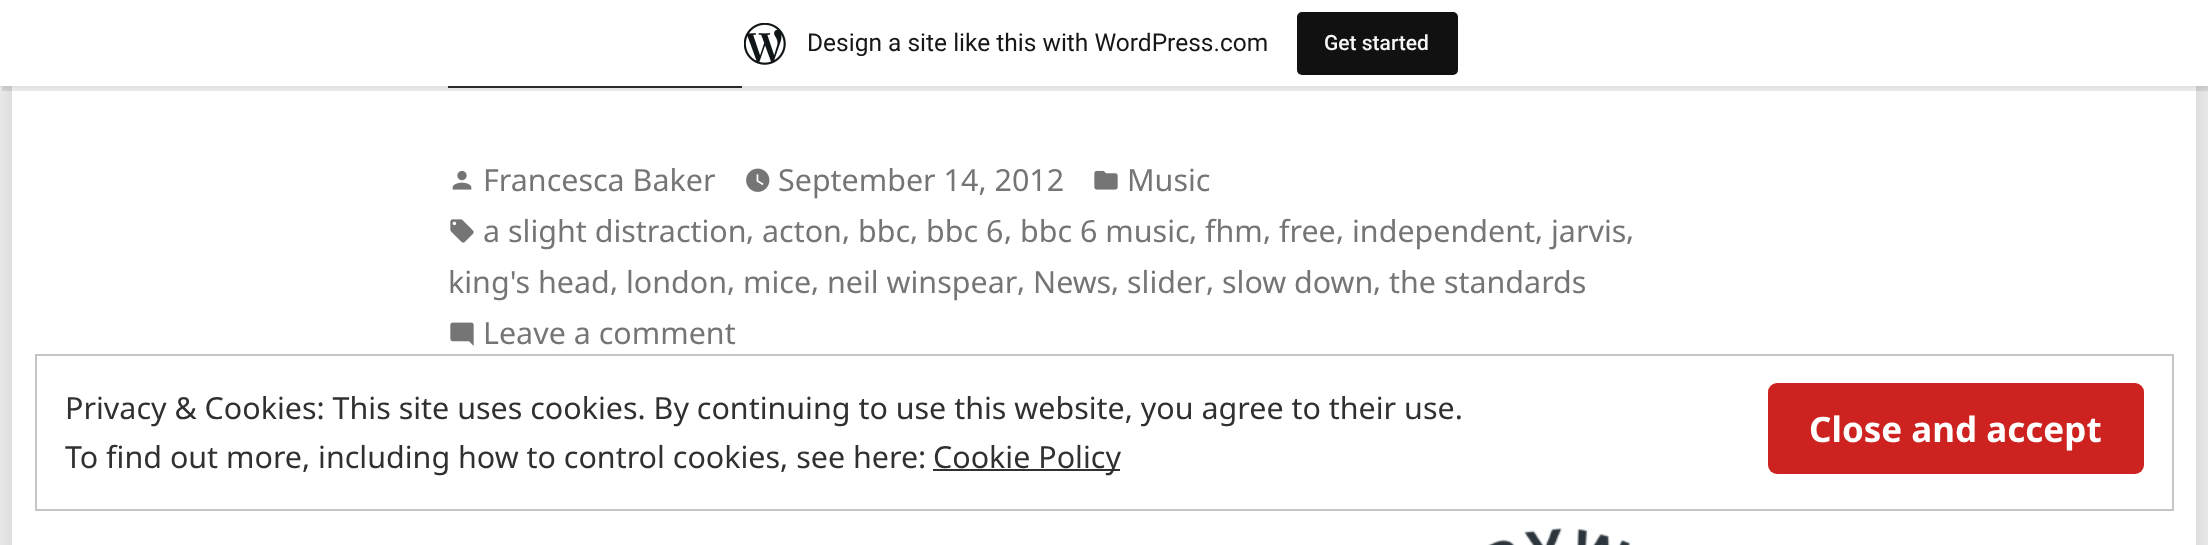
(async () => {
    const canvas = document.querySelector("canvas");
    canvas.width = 2208;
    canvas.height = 545;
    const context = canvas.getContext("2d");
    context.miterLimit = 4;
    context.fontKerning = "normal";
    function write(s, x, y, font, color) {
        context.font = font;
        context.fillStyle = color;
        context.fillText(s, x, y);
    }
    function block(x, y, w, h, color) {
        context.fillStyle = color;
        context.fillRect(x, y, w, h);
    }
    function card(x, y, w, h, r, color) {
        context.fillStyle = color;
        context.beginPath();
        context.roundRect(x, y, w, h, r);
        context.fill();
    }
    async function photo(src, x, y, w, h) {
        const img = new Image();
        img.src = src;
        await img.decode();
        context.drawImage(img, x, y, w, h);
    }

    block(0, 0, 2208, 545, "rgb(248, 248, 248)");
    context.fillStyle = "rgba(0, 0, 0, 0.2)";
    context.filter = "blur(26px)";
    context.beginPath();
    context.rect(12, -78, 2184, 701);
    context.fill();
    context.filter = "none";
    block(12, 86, 2184, 459, "rgb(255, 255, 255)");
    block(448, 86, 294, 2, "rgb(48, 48, 48)");
    context.fillStyle = "rgba(0, 0, 0, 0.05)";
    context.filter = "blur(2px)";
    context.beginPath();
    context.rect(0, 2, 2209, 86);
    context.fill();
    context.filter = "none";
    context.fillStyle = "rgba(0, 0, 0, 0.08)";
    context.beginPath();
    context.moveTo(2, 86);
    context.lineTo(2, 91);
    context.lineTo(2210, 91);
    context.lineTo(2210, 5);
    context.lineTo(2208, 5);
    context.lineTo(2208, 86);
    context.closePath();
    context.fill();
    block(0, 0, 2208, 86, "rgb(255, 255, 255)");
    await photo("media/1.png", 744, 23, 42, 42);
    write("Design a site like this with WordPress.com", 807, 51, "24.5px Roboto", "rgb(23, 23, 23)");
    card(1297, 12, 161, 63, 5, "rgb(17, 17, 17)");
    write("Get started", 1324, 50, "500 21px Roboto", "rgb(246, 247, 247)");
    await photo("media/2.png", 452, 170, 20, 20);
    write("Francesca Baker", 483, 191, "30.45px Noto Sans", "rgb(117, 117, 117)");
    await photo("media/3.png", 746, 168, 24, 24);
    write("September 14, 2012", 778, 191, "30.45px Noto Sans", "rgb(117, 117, 117)");
    await photo("media/4.png", 1094, 170, 24, 20);
    write("Music", 1127, 191, "30.45px Noto Sans", "rgb(117, 117, 117)");
    await photo("media/5.png", 450, 219, 24, 24);
    write("a slight distraction", 483, 242, "30.45px Noto Sans", "rgb(117, 117, 117)");
    write(",", 746, 240, "30.45px Noto Sans", "rgb(117, 117, 117)");
    write("acton", 762, 242, "30.45px Noto Sans", "rgb(117, 117, 117)");
    write(",", 842, 240, "30.45px Noto Sans", "rgb(117, 117, 117)");
    write("bbc", 858, 242, "30.45px Noto Sans", "rgb(117, 117, 117)");
    write(",", 910, 240, "30.45px Noto Sans", "rgb(117, 117, 117)");
    write("bbc 6", 926, 242, "30.45px Noto Sans", "rgb(117, 117, 117)");
    write(",", 1004, 240, "30.45px Noto Sans", "rgb(117, 117, 117)");
    write("bbc 6 music", 1020, 242, "30.45px Noto Sans", "rgb(117, 117, 117)");
    write(",", 1189, 240, "30.45px Noto Sans", "rgb(117, 117, 117)");
    write("fhm", 1205, 242, "30.45px Noto Sans", "rgb(117, 117, 117)");
    write(",", 1263, 240, "30.45px Noto Sans", "rgb(117, 117, 117)");
    write("free", 1279, 242, "30.45px Noto Sans", "rgb(117, 117, 117)");
    write(",", 1336, 240, "30.45px Noto Sans", "rgb(117, 117, 117)");
    write("independent", 1352, 242, "30.45px Noto Sans", "rgb(117, 117, 117)");
    write(",", 1535, 240, "30.45px Noto Sans", "rgb(117, 117, 117)");
    write("jarvis", 1551, 242, "30.45px Noto Sans", "rgb(117, 117, 117)");
    write(",", 1626, 240, "30.45px Noto Sans", "rgb(117, 117, 117)");
    write("king's head", 448, 293, "30.45px Noto Sans", "rgb(117, 117, 117)");
    write(",", 610, 291, "30.45px Noto Sans", "rgb(117, 117, 117)");
    write("london", 626, 293, "30.45px Noto Sans", "rgb(117, 117, 117)");
    write(",", 727, 291, "30.45px Noto Sans", "rgb(117, 117, 117)");
    write("mice", 743, 293, "30.45px Noto Sans", "rgb(117, 117, 117)");
    write(",", 811, 291, "30.45px Noto Sans", "rgb(117, 117, 117)");
    write("neil winspear", 827, 293, "30.45px Noto Sans", "rgb(117, 117, 117)");
    write(",", 1017, 291, "30.45px Noto Sans", "rgb(117, 117, 117)");
    write("News", 1033, 293, "30.45px Noto Sans", "rgb(117, 117, 117)");
    write(",", 1111, 291, "30.45px Noto Sans", "rgb(117, 117, 117)");
    write("slider", 1127, 293, "30.45px Noto Sans", "rgb(117, 117, 117)");
    write(",", 1206, 291, "30.45px Noto Sans", "rgb(117, 117, 117)");
    write("slow down", 1222, 293, "30.45px Noto Sans", "rgb(117, 117, 117)");
    write(",", 1373, 291, "30.45px Noto Sans", "rgb(117, 117, 117)");
    write("the standards", 1389, 293, "30.45px Noto Sans", "rgb(117, 117, 117)");
    await photo("media/6.png", 450, 322, 24, 24);
    write("Leave a comment", 483, 344, "30.45px Noto Sans", "rgb(117, 117, 117)");
    await photo("media/7.png", 1488, 527, 143, 18);
    context.strokeStyle = "rgb(197, 197, 197)";
    context.lineWidth = 2;
    context.strokeRect(36, 355, 2137, 155);
    write("Privacy & Cookies: This site uses cookies. By continuing to use this website, you agree to their use.", 65, 419, "30.45px Noto Sans", "rgb(48, 48, 48)");
    card(1768, 383, 376, 91, 9, "rgb(205, 34, 32)");
    write("Close and accept", 1809, 442, "bold 35px Noto Sans", "rgb(255, 255, 255)");
    write("To find out more, including how to control cookies, see here:", 65, 468, "30.45px Noto Sans", "rgb(48, 48, 48)");
    block(933, 469, 187, 2, "rgb(48, 48, 48)");
    write("Cookie Policy", 933, 468, "30.45px Noto Sans", "rgb(48, 48, 48)");
})();
